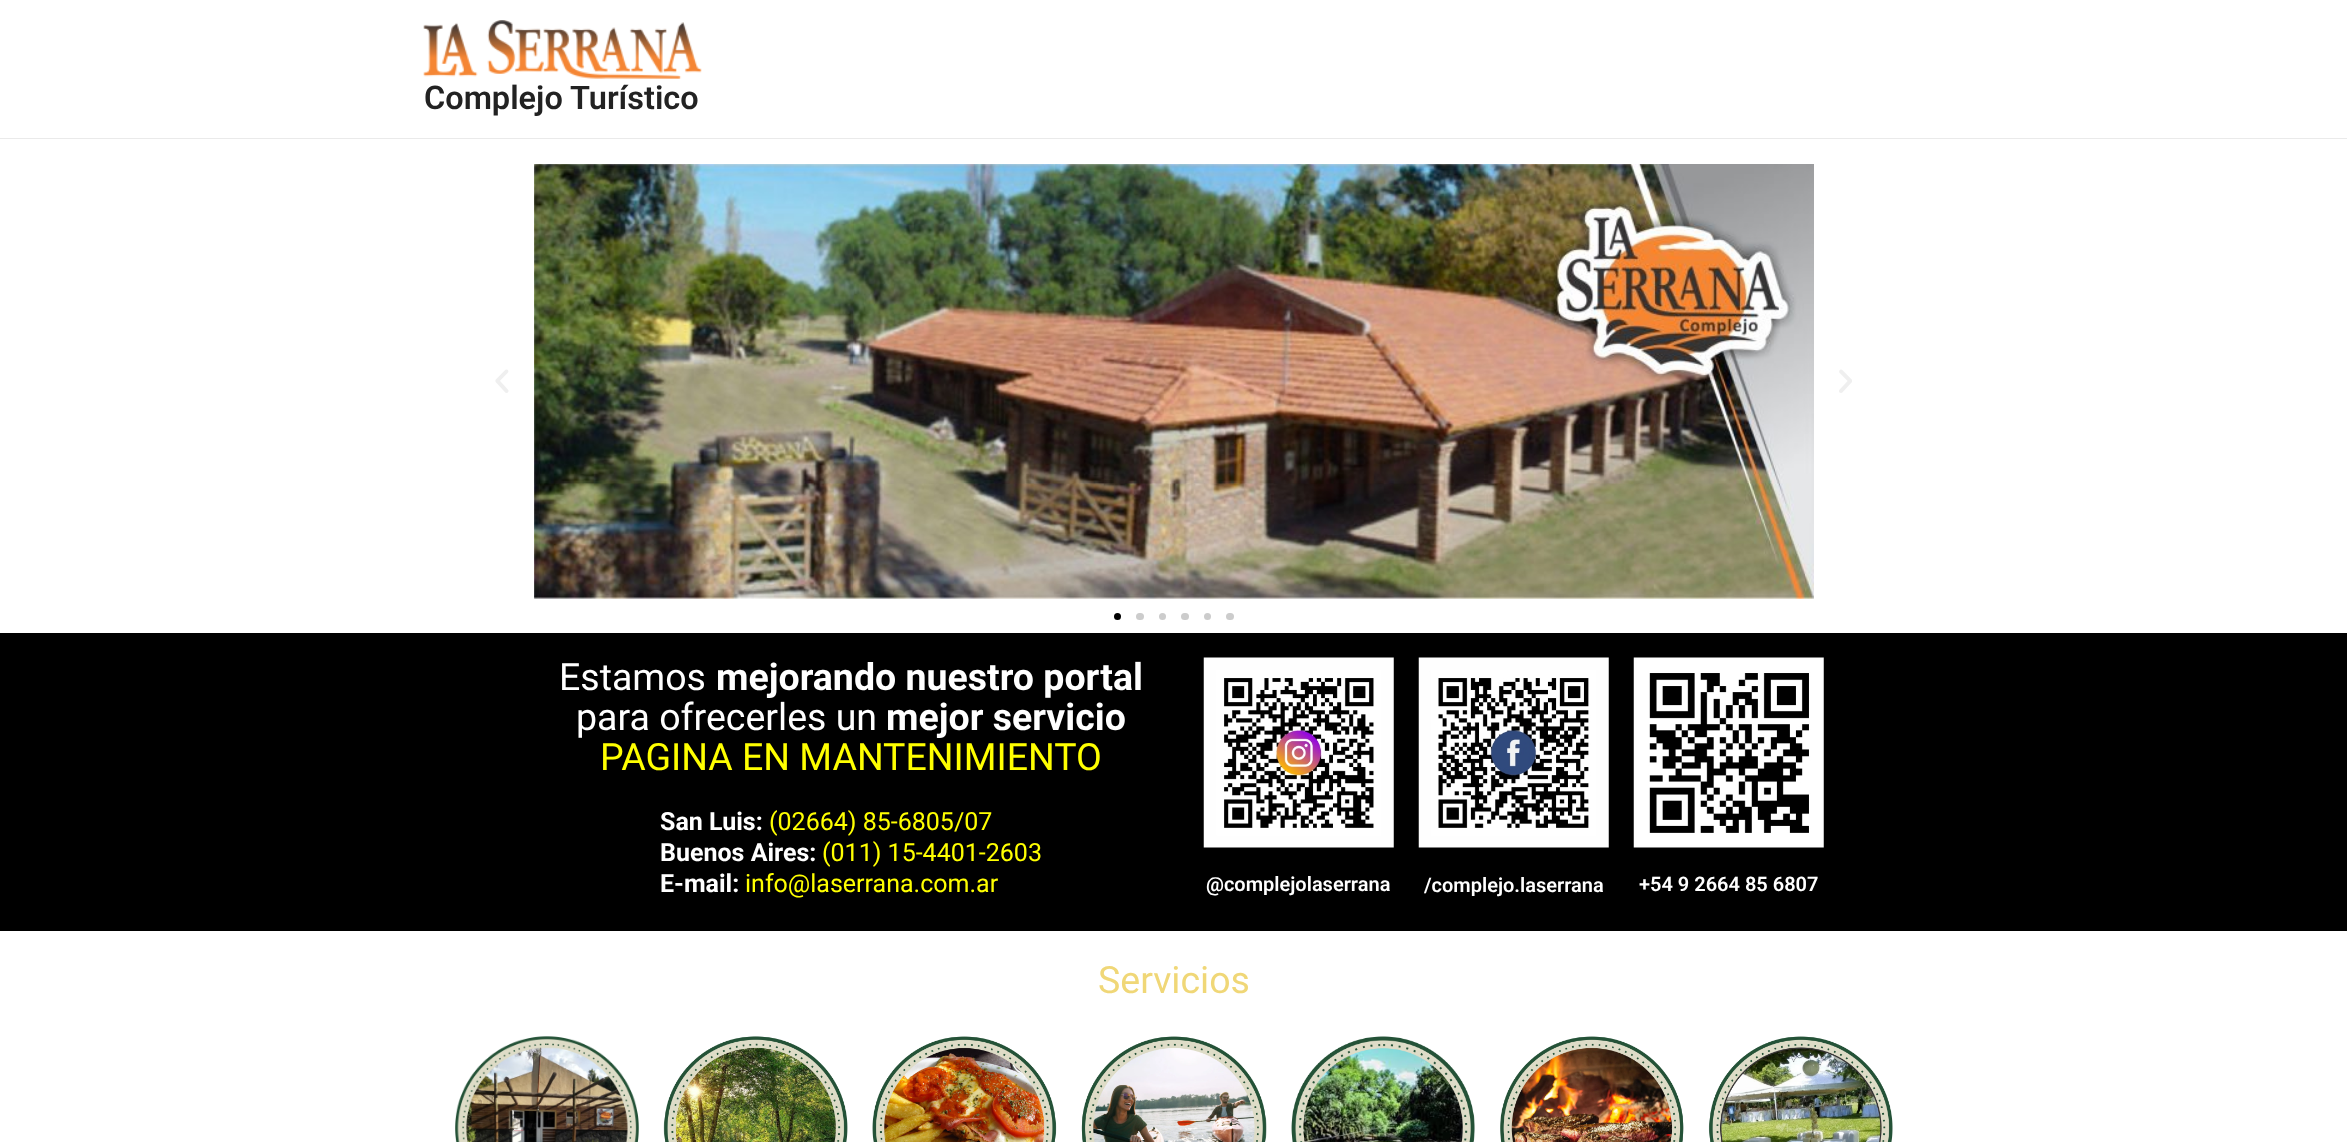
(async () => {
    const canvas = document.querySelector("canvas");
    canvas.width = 2347;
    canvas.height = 1142;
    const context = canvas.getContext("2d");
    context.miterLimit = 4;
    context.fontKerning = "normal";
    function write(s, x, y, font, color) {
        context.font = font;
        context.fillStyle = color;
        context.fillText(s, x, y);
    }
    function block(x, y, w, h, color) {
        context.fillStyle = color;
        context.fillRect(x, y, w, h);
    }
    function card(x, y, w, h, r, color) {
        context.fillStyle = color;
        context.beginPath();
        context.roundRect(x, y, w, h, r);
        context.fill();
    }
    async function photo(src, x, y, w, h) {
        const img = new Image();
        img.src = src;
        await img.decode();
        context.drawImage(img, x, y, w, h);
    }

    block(0, 0, 2347, 1142, "rgb(255, 255, 255)");
    block(0, 138, 2347, 1, "rgb(234, 234, 234)");
    await photo("media/1.png", 423, 20, 279, 59);
    write("Complejo Turístico", 424, 109, "600 32.5px Roboto", "rgb(34, 34, 34)");
    await photo("media/2.png", 495, 369, 14, 24);
    await photo("media/3.png", 534, 164, 1280, 435);
    await photo("media/4.png", 1839, 369, 13, 24);
    context.fillStyle = "rgb(0, 0, 0)";
    context.beginPath();
    context.arc(1117.5, 616.5, 3.5, 0, Math.PI * 2);
    context.fill();
    card(1136, 613, 8, 7, 3.5, "rgb(204, 204, 204)");
    context.beginPath();
    context.arc(1162.5, 616.5, 3.5, 0, Math.PI * 2);
    context.fill();
    card(1181, 613, 8, 7, 3.5, "rgb(204, 204, 204)");
    context.beginPath();
    context.arc(1207.5, 616.5, 3.5, 0, Math.PI * 2);
    context.fill();
    card(1226, 613, 8, 7, 3.5, "rgb(204, 204, 204)");
    block(0, 633, 2347, 298, "rgb(0, 0, 0)");
    write("Estamos", 559, 690, "37.5px Roboto", "rgb(255, 255, 255)");
    write("mejorando nuestro portal", 716, 690, "bold 37.5px Roboto", "rgb(255, 255, 255)");
    write("para ofrecerles un", 576, 730, "37.5px Roboto", "rgb(255, 255, 255)");
    write("mejor servicio", 886, 730, "bold 37.5px Roboto", "rgb(255, 255, 255)");
    write("PAGINA EN MANTENIMIENTO", 600, 770, "37.5px Roboto", "rgb(255, 255, 0)");
    write("San Luis:", 660, 830, "bold 25px Roboto", "rgb(255, 255, 255)");
    write("(02664) 85-6805/07", 769, 830, "25px Roboto", "rgb(255, 255, 0)");
    write("Buenos Aires:", 660, 861, "bold 25px Roboto", "rgb(255, 255, 255)");
    write("(011) 15-4401-2603", 822, 861, "25px Roboto", "rgb(255, 255, 0)");
    write("E-mail:", 660, 892, "bold 25px Roboto", "rgb(255, 255, 255)");
    write("info@laserrana.com.ar", 745, 892, "25px Roboto", "rgb(255, 255, 0)");
    await photo("media/5.png", 1203, 657, 191, 191);
    write("@complejolaserrana", 1206, 891, "600 20px Roboto", "rgb(255, 255, 255)");
    await photo("media/6.png", 1418, 657, 191, 191);
    write("/complejo.laserrana", 1424, 892, "600 20px Roboto", "rgb(255, 255, 255)");
    await photo("media/7.png", 1633, 657, 191, 191);
    write("+54 9 2664 85 6807", 1639, 891, "600 20px Roboto", "rgb(255, 255, 255)");
    write("Servicios", 1098, 993, "37.5px Roboto", "rgb(240, 215, 119)");
    await photo("media/8.png", 455, 1036, 184, 106);
    await photo("media/9.png", 663, 1036, 185, 106);
    await photo("media/10.png", 872, 1036, 185, 106);
    await photo("media/11.png", 1081, 1036, 186, 106);
    await photo("media/12.png", 1291, 1036, 184, 106);
    await photo("media/13.png", 1500, 1036, 184, 106);
    await photo("media/14.png", 1708, 1036, 185, 106);
})();
